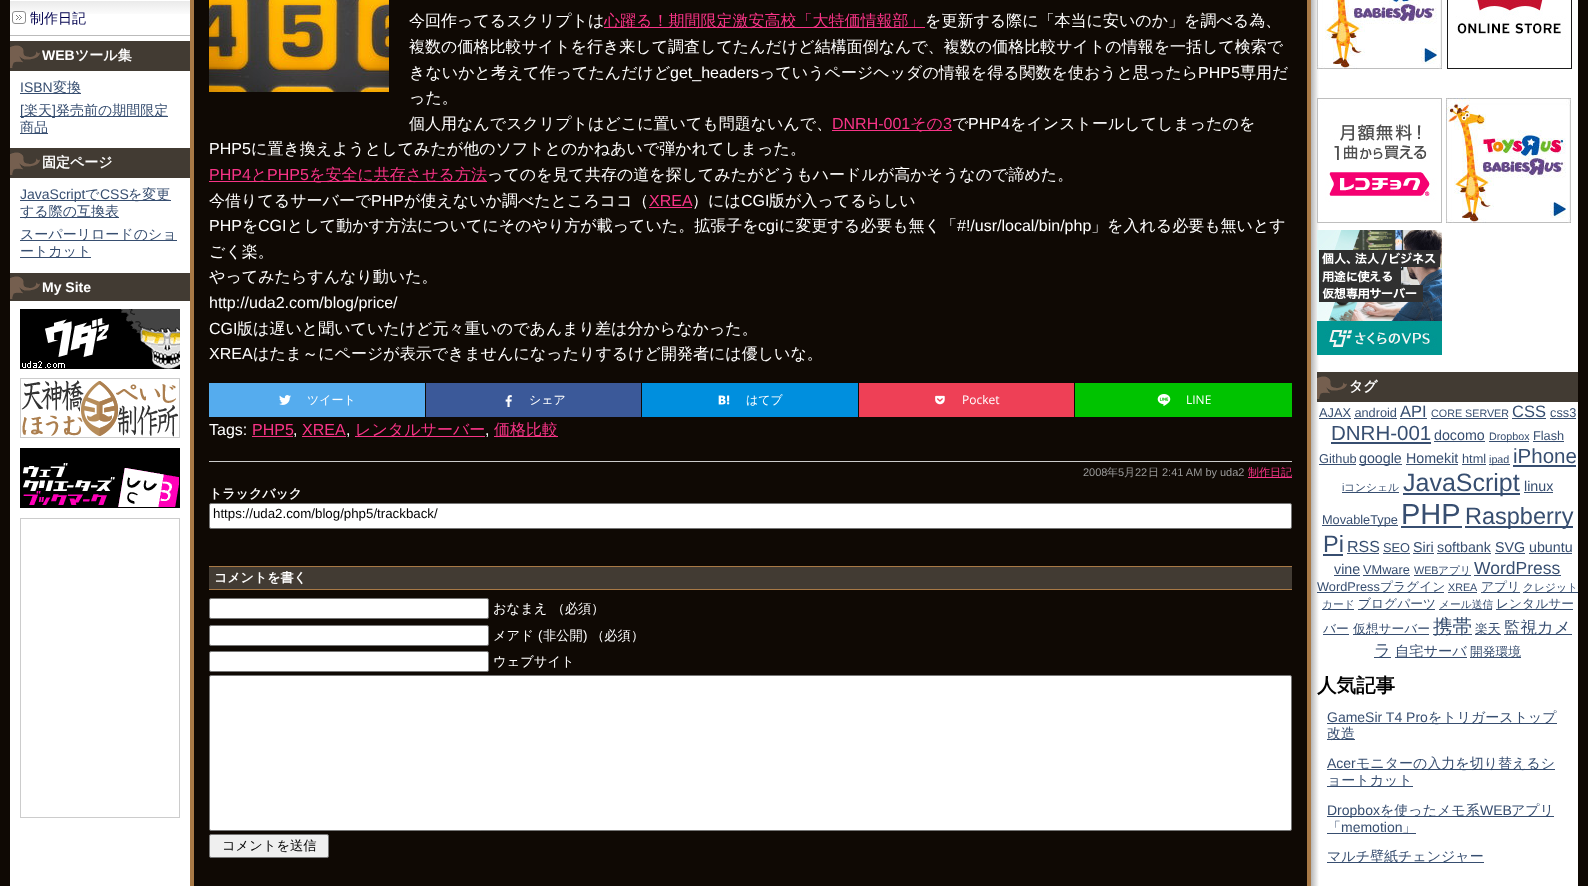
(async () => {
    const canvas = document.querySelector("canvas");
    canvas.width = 1588;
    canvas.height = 886;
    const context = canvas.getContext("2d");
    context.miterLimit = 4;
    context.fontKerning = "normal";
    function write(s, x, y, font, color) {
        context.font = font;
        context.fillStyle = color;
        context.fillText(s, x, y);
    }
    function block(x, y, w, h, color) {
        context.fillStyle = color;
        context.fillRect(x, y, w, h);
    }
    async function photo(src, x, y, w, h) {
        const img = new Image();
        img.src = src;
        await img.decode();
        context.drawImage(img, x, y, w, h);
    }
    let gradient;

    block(0, 0, 1588, 886, "rgb(15, 9, 4)");
    block(10, 0, 180, 886, "rgb(255, 255, 255)");
    block(10, 35, 180, 1, "rgb(187, 187, 187)");
    gradient = context.createLinearGradient(100, 1, 100, 35);
    gradient.addColorStop(0, "rgb(234, 234, 234)");
    gradient.addColorStop(0.45, "rgb(255, 255, 255)");
    context.fillStyle = gradient;
    context.fillRect(10, 1, 180, 13);
    await photo("media/1.png", 13, 12, 12, 8);
    context.beginPath();
    context.roundRect(12.5, 11.5, 13, 12, 2.5);
    context.strokeStyle = "rgb(143, 143, 143)";
    context.stroke();
    write("制作日記", 30, 23, "500 14px WenQuanYi Zen Hei", "rgb(0, 1, 78)");
    block(10, 41, 180, 30, "rgb(66, 59, 51)");
    await photo("media/2.png", 10, 45, 30, 23);
    write("WEB", 42, 60, "bold 14px Liberation Sans", "rgb(255, 255, 255)");
    write("ツール集", 75, 60, "bold 14px WenQuanYi Zen Hei", "rgb(255, 255, 255)");
    write("ISBN", 20, 92, "14px Liberation Sans", "rgb(55, 78, 112)");
    block(20, 93, 61, 1, "rgb(55, 78, 112)");
    write("変換", 53, 92, "500 14px WenQuanYi Zen Hei", "rgb(55, 78, 112)");
    block(20, 116, 148, 1, "rgb(55, 78, 112)");
    write("[", 20, 115, "14px Liberation Sans", "rgb(55, 78, 112)");
    write("楽天", 24, 115, "500 14px WenQuanYi Zen Hei", "rgb(55, 78, 112)");
    write("]", 52, 115, "14px Liberation Sans", "rgb(55, 78, 112)");
    write("発売前の期間限定", 56, 115, "500 14px WenQuanYi Zen Hei", "rgb(55, 78, 112)");
    block(20, 133, 28, 1, "rgb(55, 78, 112)");
    write("商品", 20, 132, "500 14px WenQuanYi Zen Hei", "rgb(55, 78, 112)");
    block(10, 148, 180, 30, "rgb(66, 59, 51)");
    await photo("media/2.png", 10, 152, 30, 23);
    write("固定ページ", 42, 167, "bold 14px WenQuanYi Zen Hei", "rgb(255, 255, 255)");
    block(20, 200, 151, 1, "rgb(55, 78, 112)");
    write("JavaScript", 20, 199, "14px Liberation Sans", "rgb(55, 78, 112)");
    write("で", 85, 199, "500 14px WenQuanYi Zen Hei", "rgb(55, 78, 112)");
    write("CSS", 100, 199, "14px Liberation Sans", "rgb(55, 78, 112)");
    write("を変更", 128, 199, "500 14px WenQuanYi Zen Hei", "rgb(55, 78, 112)");
    block(20, 217, 99, 1, "rgb(55, 78, 112)");
    write("する際の互換表", 20, 216, "500 14px WenQuanYi Zen Hei", "rgb(55, 78, 112)");
    block(20, 240, 157, 1, "rgb(55, 78, 112)");
    write("スーパーリロードのショ", 20, 239, "500 14px WenQuanYi Zen Hei", "rgb(55, 78, 112)");
    block(20, 257, 71, 1, "rgb(55, 78, 112)");
    write("ートカット", 20, 256, "500 14px WenQuanYi Zen Hei", "rgb(55, 78, 112)");
    block(10, 273, 180, 28, "rgb(66, 59, 51)");
    await photo("media/2.png", 10, 276, 30, 23);
    write("My Site", 42, 292, "bold 14px Liberation Sans", "rgb(255, 255, 255)");
    await photo("media/3.png", 20, 309, 160, 60);
    await photo("media/4.png", 20, 378, 160, 60);
    await photo("media/5.png", 20, 448, 160, 60);
    context.strokeStyle = "rgb(204, 204, 204)";
    context.strokeRect(20.5, 518.5, 159, 299);
    block(1307, 0, 4, 886, "rgb(168, 121, 70)");
    block(190, 0, 4, 886, "rgb(168, 121, 70)");
    await photo("media/6.png", 209, 0, 180, 92);
    write("今回作ってるスクリプトは", 409, 26, "500 16px WenQuanYi Zen Hei", "rgb(255, 255, 255)");
    block(604, 27, 321, 1, "rgb(248, 52, 135)");
    write("心躍る！期間限定激安高校「大特価情報部」", 604, 26, "500 16px WenQuanYi Zen Hei", "rgb(248, 52, 135)");
    write("を更新する際に「本当に安いのか」を調べる為、", 925, 26, "500 16px WenQuanYi Zen Hei", "rgb(255, 255, 255)");
    write("複数の価格比較サイトを行き来して調査してたんだけど結構面倒なんで、複数の価格比較サイトの情報を一括して検索で", 409, 52, "500 16px WenQuanYi Zen Hei", "rgb(255, 255, 255)");
    write("きないかと考えて作ってたんだけど", 409, 78, "500 16px WenQuanYi Zen Hei", "rgb(255, 255, 255)");
    write("get_headers", 670, 78, "16px Liberation Sans", "rgb(255, 255, 255)");
    write("っていうページヘッダの情報を得る関数を使おうと思ったら", 759, 78, "500 16px WenQuanYi Zen Hei", "rgb(255, 255, 255)");
    write("PHP5", 1198, 78, "16px Liberation Sans", "rgb(255, 255, 255)");
    write("専用だ", 1240, 78, "500 16px WenQuanYi Zen Hei", "rgb(255, 255, 255)");
    write("った。", 409, 103, "500 16px WenQuanYi Zen Hei", "rgb(255, 255, 255)");
    write("個人用なんでスクリプトはどこに置いても問題ないんで、", 409, 129, "500 16px WenQuanYi Zen Hei", "rgb(255, 255, 255)");
    write("DNRH-001", 832, 129, "16px Liberation Sans", "rgb(248, 52, 135)");
    block(832, 130, 120, 1, "rgb(248, 52, 135)");
    write("その", 910, 129, "500 16px WenQuanYi Zen Hei", "rgb(248, 52, 135)");
    write("3", 943, 129, "16px Liberation Sans", "rgb(248, 52, 135)");
    write("で", 952, 129, "500 16px WenQuanYi Zen Hei", "rgb(255, 255, 255)");
    write("PHP4", 968, 129, "16px Liberation Sans", "rgb(255, 255, 255)");
    write("をインストールしてしまったのを", 1010, 129, "500 16px WenQuanYi Zen Hei", "rgb(255, 255, 255)");
    write("PHP5", 209, 154, "16px Liberation Sans", "rgb(255, 255, 255)");
    write("に置き換えようとしてみたが他のソフトとのかねあいで弾かれてしまった。", 251, 154, "500 16px WenQuanYi Zen Hei", "rgb(255, 255, 255)");
    write("PHP4", 209, 180, "16px Liberation Sans", "rgb(248, 52, 135)");
    block(209, 181, 278, 1, "rgb(248, 52, 135)");
    write("と", 251, 180, "500 16px WenQuanYi Zen Hei", "rgb(248, 52, 135)");
    write("PHP5", 267, 180, "16px Liberation Sans", "rgb(248, 52, 135)");
    write("を安全に共存させる方法", 309, 180, "500 16px WenQuanYi Zen Hei", "rgb(248, 52, 135)");
    write("ってのを見て共存の道を探してみたがどうもハードルが高かそうなので諦めた。", 487, 180, "500 16px WenQuanYi Zen Hei", "rgb(255, 255, 255)");
    write("今借りてるサーバーで", 209, 206, "500 16px WenQuanYi Zen Hei", "rgb(255, 255, 255)");
    write("PHP", 371, 206, "16px Liberation Sans", "rgb(255, 255, 255)");
    write("が使えないか調べたところココ（", 404, 206, "500 16px WenQuanYi Zen Hei", "rgb(255, 255, 255)");
    write("XREA", 649, 206, "16px Liberation Sans", "rgb(248, 52, 135)");
    block(649, 207, 43, 1, "rgb(248, 52, 135)");
    write("）には", 692, 206, "500 16px WenQuanYi Zen Hei", "rgb(255, 255, 255)");
    write("CGI", 741, 206, "16px Liberation Sans", "rgb(255, 255, 255)");
    write("版が入ってるらしい", 769, 206, "500 16px WenQuanYi Zen Hei", "rgb(255, 255, 255)");
    write("PHP", 209, 231, "16px Liberation Sans", "rgb(255, 255, 255)");
    write("を", 242, 231, "500 16px WenQuanYi Zen Hei", "rgb(255, 255, 255)");
    write("CGI", 258, 231, "16px Liberation Sans", "rgb(255, 255, 255)");
    write("として動かす方法についてにそのやり方が載っていた。拡張子を", 287, 231, "500 16px WenQuanYi Zen Hei", "rgb(255, 255, 255)");
    write("cgi", 758, 231, "16px Liberation Sans", "rgb(255, 255, 255)");
    write("に変更する必要も無く「", 779, 231, "500 16px WenQuanYi Zen Hei", "rgb(255, 255, 255)");
    write("#!/usr/local/bin/php", 957, 231, "16px Liberation Sans", "rgb(255, 255, 255)");
    write("」を入れる必要も無いとす", 1091, 231, "500 16px WenQuanYi Zen Hei", "rgb(255, 255, 255)");
    write("ごく楽。", 209, 257, "500 16px WenQuanYi Zen Hei", "rgb(255, 255, 255)");
    write("やってみたらすんなり動いた。", 209, 282, "500 16px WenQuanYi Zen Hei", "rgb(255, 255, 255)");
    write("http://uda2.com/blog/price/", 209, 308, "16px Liberation Sans", "rgb(255, 255, 255)");
    write("CGI", 209, 334, "16px Liberation Sans", "rgb(255, 255, 255)");
    write("版は遅いと聞いていたけど元々重いのであんまり差は分からなかった。", 237, 334, "500 16px WenQuanYi Zen Hei", "rgb(255, 255, 255)");
    write("XREA", 209, 359, "16px Liberation Sans", "rgb(255, 255, 255)");
    write("はたま～にページが表示できませんになったりするけど開発者には優しいな。", 253, 359, "500 16px WenQuanYi Zen Hei", "rgb(255, 255, 255)");
    block(209, 383, 216, 34, "rgb(85, 172, 238)");
    await photo("media/7.png", 279, 395, 12, 10);
    write("ツイート", 307, 404, "500 12px WenQuanYi Zen Hei", "rgb(255, 255, 255)");
    block(426, 383, 215, 34, "rgb(59, 89, 153)");
    await photo("media/8.png", 505, 395, 7, 12);
    write("シェア", 529, 404, "500 12px WenQuanYi Zen Hei", "rgb(255, 255, 255)");
    block(642, 383, 216, 34, "rgb(0, 143, 222)");
    await photo("media/9.png", 718, 395, 12, 10);
    write("はてブ", 746, 404, "500 12px WenQuanYi Zen Hei", "rgb(255, 255, 255)");
    block(859, 383, 215, 34, "rgb(238, 64, 86)");
    await photo("media/10.png", 935, 395, 10, 10);
    write("Pocket", 962, 404, "12px Open Sans", "rgb(255, 255, 255)");
    block(1075, 383, 217, 34, "rgb(0, 195, 0)");
    await photo("media/11.png", 1157, 394, 14, 12);
    write("LINE", 1186, 404, "12px Open Sans", "rgb(255, 255, 255)");
    write("Tags:", 209, 435, "16px Liberation Sans", "rgb(255, 255, 255)");
    write("PHP5", 252, 435, "16px Liberation Sans", "rgb(248, 52, 135)");
    block(252, 436, 41, 1, "rgb(248, 52, 135)");
    write("XREA", 302, 435, "16px Liberation Sans", "rgb(248, 52, 135)");
    block(302, 436, 44, 1, "rgb(248, 52, 135)");
    block(355, 436, 130, 1, "rgb(248, 52, 135)");
    write("レンタルサーバー", 355, 435, "500 16px WenQuanYi Zen Hei", "rgb(248, 52, 135)");
    block(494, 436, 64, 1, "rgb(248, 52, 135)");
    write("価格比較", 494, 435, "500 16px WenQuanYi Zen Hei", "rgb(248, 52, 135)");
    write(",", 293, 435, "16px Liberation Sans", "rgb(255, 255, 255)");
    write(",", 346, 435, "16px Liberation Sans", "rgb(255, 255, 255)");
    write(",", 485, 435, "16px Liberation Sans", "rgb(255, 255, 255)");
    block(209, 461, 1083, 1, "rgb(204, 204, 204)");
    write("2008", 1083, 476, "11px Liberation Sans", "rgb(153, 153, 153)");
    write("年", 1107, 476, "500 11px WenQuanYi Zen Hei", "rgb(153, 153, 153)");
    write("5", 1118, 476, "11px Liberation Sans", "rgb(153, 153, 153)");
    write("月", 1124, 476, "500 11px WenQuanYi Zen Hei", "rgb(153, 153, 153)");
    write("22", 1135, 476, "11px Liberation Sans", "rgb(153, 153, 153)");
    write("日", 1148, 476, "500 11px WenQuanYi Zen Hei", "rgb(153, 153, 153)");
    write("2:41 AM by", 1162, 476, "11px Liberation Sans", "rgb(153, 153, 153)");
    write("uda2", 1220, 476, "11px Liberation Sans", "rgb(153, 153, 153)");
    block(1248, 477, 44, 1, "rgb(248, 52, 135)");
    write("制作日記", 1248, 476, "500 11px WenQuanYi Zen Hei", "rgb(248, 52, 135)");
    write("トラックバック", 209, 498, "bold 13px WenQuanYi Zen Hei", "rgb(255, 255, 255)");
    context.beginPath();
    context.roundRect(209.5, 503.5, 1082, 25, 1.5);
    context.fill();
    context.strokeStyle = "rgb(118, 118, 118)";
    context.stroke();
    write("https://uda2.com/blog/php5/trackback/", 213, 518, "13.3px Liberation Sans", "rgb(0, 0, 0)");
    block(209, 567, 1083, 22, "rgb(66, 59, 51)");
    block(209, 566, 1083, 1, "rgb(168, 121, 70)");
    block(209, 589, 1083, 1, "rgb(168, 121, 70)");
    write("コメントを書く", 214, 582, "bold 13px WenQuanYi Zen Hei", "rgb(255, 255, 255)");
    context.beginPath();
    context.roundRect(209.5, 598.5, 279, 20, 1.5);
    context.fill();
    context.stroke();
    write("おなまえ （必須）", 493, 613, "500 13.3px WenQuanYi Zen Hei", "rgb(255, 255, 255)");
    context.beginPath();
    context.roundRect(209.5, 625.5, 279, 20, 1.5);
    context.fill();
    context.stroke();
    write("メアド", 493, 640, "500 13.3px WenQuanYi Zen Hei", "rgb(255, 255, 255)");
    write("(", 538, 640, "13.3px Liberation Sans", "rgb(255, 255, 255)");
    write("非公開", 543, 640, "500 13.3px WenQuanYi Zen Hei", "rgb(255, 255, 255)");
    write(")", 583, 640, "13.3px Liberation Sans", "rgb(255, 255, 255)");
    write("（必須）", 591, 640, "500 13.3px WenQuanYi Zen Hei", "rgb(255, 255, 255)");
    context.beginPath();
    context.roundRect(209.5, 651.5, 279, 20, 1.5);
    context.fill();
    context.stroke();
    write("ウェブサイト", 493, 666, "500 13.3px WenQuanYi Zen Hei", "rgb(255, 255, 255)");
    context.beginPath();
    context.roundRect(209.5, 675.5, 1082, 155, 1.5);
    context.fill();
    context.stroke();
    context.fillStyle = "rgb(239, 239, 239)";
    context.beginPath();
    context.roundRect(209.5, 834.5, 119, 23, 1.5);
    context.fill();
    context.stroke();
    write("コメントを送信", 222, 850, "500 13.3px WenQuanYi Zen Hei", "rgb(0, 0, 0)");
    gradient = context.createLinearGradient(1311, 498, 1578, 498);
    gradient.addColorStop(0, "rgb(182, 182, 182)");
    gradient.addColorStop(0.03, "rgb(255, 255, 255)");
    context.fillStyle = gradient;
    context.fillRect(1311, 0, 267, 886);
    await photo("media/12.png", 1317, 0, 125, 69);
    await photo("media/13.png", 1447, 0, 125, 69);
    await photo("media/14.png", 1317, 98, 125, 125);
    await photo("media/15.png", 1446, 98, 125, 125);
    await photo("media/16.png", 1317, 230, 125, 125);
    block(1317, 372, 261, 30, "rgb(66, 59, 51)");
    await photo("media/2.png", 1317, 376, 30, 23);
    write("タグ", 1349, 391, "bold 14px WenQuanYi Zen Hei", "rgb(255, 255, 255)");
    write("AJAX android", 1319, 417, "12.75px Liberation Sans", "rgb(55, 78, 112)");
    block(1319, 418, 32, 1, "rgb(55, 78, 112)");
    write("API", 1400, 417, "16.5px Liberation Sans", "rgb(55, 78, 112)");
    block(1400, 418, 27, 1, "rgb(55, 78, 112)");
    write("CORE SERVER", 1431, 417, "10.75px Liberation Sans", "rgb(55, 78, 112)");
    block(1431, 418, 77, 1, "rgb(55, 78, 112)");
    write("CSS", 1512, 417, "16.5px Liberation Sans", "rgb(55, 78, 112)");
    block(1512, 418, 34, 1, "rgb(55, 78, 112)");
    write("css3", 1550, 417, "12.75px Liberation Sans", "rgb(55, 78, 112)");
    block(1550, 418, 26, 1, "rgb(55, 78, 112)");
    block(1354, 418, 43, 1, "rgb(55, 78, 112)");
    write("DNRH-001", 1331, 440, "20.5px Liberation Sans", "rgb(55, 78, 112)");
    block(1331, 442, 100, 2, "rgb(55, 78, 112)");
    write("docomo", 1434, 440, "14.25px Liberation Sans", "rgb(55, 78, 112)");
    block(1434, 441, 51, 1, "rgb(55, 78, 112)");
    block(1489, 441, 40, 1, "rgb(55, 78, 112)");
    write("Dropbox", 1489, 440, "10.75px Liberation Sans", "rgb(55, 78, 112)");
    write("Flash", 1533, 440, "12.75px Liberation Sans", "rgb(55, 78, 112)");
    block(1533, 441, 31, 1, "rgb(55, 78, 112)");
    write("Github", 1319, 463, "12.75px Liberation Sans", "rgb(55, 78, 112)");
    block(1319, 464, 37, 1, "rgb(55, 78, 112)");
    block(1359, 464, 43, 1, "rgb(55, 78, 112)");
    write("google", 1359, 463, "14.25px Liberation Sans", "rgb(55, 78, 112)");
    write("Homekit", 1406, 463, "14.25px Liberation Sans", "rgb(55, 78, 112)");
    block(1406, 464, 52, 1, "rgb(55, 78, 112)");
    write("html", 1462, 463, "12.75px Liberation Sans", "rgb(55, 78, 112)");
    block(1462, 464, 24, 1, "rgb(55, 78, 112)");
    block(1489, 464, 21, 1, "rgb(55, 78, 112)");
    write("ipad", 1489, 463, "10.75px Liberation Sans", "rgb(55, 78, 112)");
    write("iPhone", 1513, 463, "20.5px Liberation Sans", "rgb(55, 78, 112)");
    block(1513, 465, 63, 2, "rgb(55, 78, 112)");
    write("i", 1342, 491, "10.75px Liberation Sans", "rgb(55, 78, 112)");
    write("コンシェル", 1344, 491, "500 10.75px WenQuanYi Zen Hei", "rgb(55, 78, 112)");
    block(1342, 492, 57, 1, "rgb(55, 78, 112)");
    block(1403, 493, 117, 2, "rgb(55, 78, 112)");
    write("JavaScript", 1403, 491, "25px Liberation Sans", "rgb(55, 78, 112)");
    write("linux", 1524, 491, "14.25px Liberation Sans", "rgb(55, 78, 112)");
    block(1524, 492, 29, 1, "rgb(55, 78, 112)");
    block(1322, 525, 76, 1, "rgb(55, 78, 112)");
    write("MovableType", 1322, 524, "12.75px Liberation Sans", "rgb(55, 78, 112)");
    write("PHP", 1401, 524, "29px Liberation Sans", "rgb(55, 78, 112)");
    block(1401, 526, 61, 2, "rgb(55, 78, 112)");
    block(1465, 526, 108, 2, "rgb(55, 78, 112)");
    write("Raspberry", 1465, 524, "23.5px Liberation Sans", "rgb(55, 78, 112)");
    write("Pi", 1323, 552, "23.5px Liberation Sans", "rgb(55, 78, 112)");
    block(1323, 554, 20, 2, "rgb(55, 78, 112)");
    write("RSS", 1347, 552, "16px Liberation Sans", "rgb(55, 78, 112)");
    block(1347, 553, 32, 1, "rgb(55, 78, 112)");
    write("SEO", 1383, 552, "12.75px Liberation Sans", "rgb(55, 78, 112)");
    block(1383, 553, 27, 1, "rgb(55, 78, 112)");
    write("Siri", 1413, 552, "14.25px Liberation Sans", "rgb(55, 78, 112)");
    block(1413, 553, 21, 1, "rgb(55, 78, 112)");
    write("softbank", 1437, 552, "14.25px Liberation Sans", "rgb(55, 78, 112)");
    block(1437, 553, 54, 1, "rgb(55, 78, 112)");
    write("SVG", 1495, 552, "14.25px Liberation Sans", "rgb(55, 78, 112)");
    block(1495, 553, 30, 1, "rgb(55, 78, 112)");
    write("ubuntu", 1529, 552, "14.25px Liberation Sans", "rgb(55, 78, 112)");
    block(1529, 553, 43, 1, "rgb(55, 78, 112)");
    write("vine", 1334, 574, "14.25px Liberation Sans", "rgb(55, 78, 112)");
    block(1334, 575, 26, 1, "rgb(55, 78, 112)");
    write("VMware", 1363, 574, "12.75px Liberation Sans", "rgb(55, 78, 112)");
    block(1363, 575, 47, 1, "rgb(55, 78, 112)");
    write("WEB", 1414, 574, "10.75px Liberation Sans", "rgb(55, 78, 112)");
    block(1414, 575, 57, 1, "rgb(55, 78, 112)");
    write("アプリ", 1438, 574, "500 10.75px WenQuanYi Zen Hei", "rgb(55, 78, 112)");
    write("WordPress", 1474, 574, "17.5px Liberation Sans", "rgb(55, 78, 112)");
    block(1474, 575, 87, 1, "rgb(55, 78, 112)");
    write("WordPress", 1317, 591, "12.75px Liberation Sans", "rgb(55, 78, 112)");
    block(1317, 592, 127, 1, "rgb(55, 78, 112)");
    write("プラグイン", 1380, 591, "500 12.75px WenQuanYi Zen Hei", "rgb(55, 78, 112)");
    write("XREA", 1448, 591, "10.75px Liberation Sans", "rgb(55, 78, 112)");
    block(1448, 592, 29, 1, "rgb(55, 78, 112)");
    block(1481, 592, 39, 1, "rgb(55, 78, 112)");
    write("アプリ", 1481, 591, "500 12.75px WenQuanYi Zen Hei", "rgb(55, 78, 112)");
    block(1523, 592, 55, 1, "rgb(55, 78, 112)");
    write("クレジット", 1523, 591, "500 10.75px WenQuanYi Zen Hei", "rgb(55, 78, 112)");
    block(1322, 609, 32, 1, "rgb(55, 78, 112)");
    write("カード", 1322, 608, "500 10.75px WenQuanYi Zen Hei", "rgb(55, 78, 112)");
    block(1358, 609, 77, 1, "rgb(55, 78, 112)");
    write("ブログパーツ", 1358, 608, "500 12.75px WenQuanYi Zen Hei", "rgb(55, 78, 112)");
    block(1439, 609, 53, 1, "rgb(55, 78, 112)");
    write("メール送信", 1439, 608, "500 10.75px WenQuanYi Zen Hei", "rgb(55, 78, 112)");
    block(1496, 609, 77, 1, "rgb(55, 78, 112)");
    write("レンタルサー", 1496, 608, "500 12.75px WenQuanYi Zen Hei", "rgb(55, 78, 112)");
    write("バー", 1323, 633, "500 12.75px WenQuanYi Zen Hei", "rgb(55, 78, 112)");
    block(1323, 634, 26, 1, "rgb(55, 78, 112)");
    block(1353, 634, 76, 1, "rgb(55, 78, 112)");
    write("仮想サーバー", 1353, 633, "500 12.75px WenQuanYi Zen Hei", "rgb(55, 78, 112)");
    block(1433, 634, 39, 1, "rgb(55, 78, 112)");
    write("携帯", 1433, 633, "500 19.5px WenQuanYi Zen Hei", "rgb(55, 78, 112)");
    block(1475, 634, 26, 1, "rgb(55, 78, 112)");
    write("楽天", 1475, 633, "500 12.75px WenQuanYi Zen Hei", "rgb(55, 78, 112)");
    block(1504, 634, 68, 1, "rgb(55, 78, 112)");
    write("監視カメ", 1504, 633, "500 16.5px WenQuanYi Zen Hei", "rgb(55, 78, 112)");
    block(1374, 657, 17, 1, "rgb(55, 78, 112)");
    write("ラ", 1374, 656, "500 16.5px WenQuanYi Zen Hei", "rgb(55, 78, 112)");
    block(1395, 657, 72, 1, "rgb(55, 78, 112)");
    write("自宅サーバ", 1395, 656, "500 14.25px WenQuanYi Zen Hei", "rgb(55, 78, 112)");
    block(1470, 657, 51, 1, "rgb(55, 78, 112)");
    write("開発環境", 1470, 656, "500 12.75px WenQuanYi Zen Hei", "rgb(55, 78, 112)");
    write("人気記事", 1317, 692, "bold 19.5px WenQuanYi Zen Hei", "rgb(0, 0, 0)");
    write("GameSir T4 Pro", 1327, 722, "14px Liberation Sans", "rgb(55, 78, 112)");
    block(1327, 723, 230, 1, "rgb(55, 78, 112)");
    write("をトリガーストップ", 1428, 722, "500 14px WenQuanYi Zen Hei", "rgb(55, 78, 112)");
    block(1327, 739, 28, 1, "rgb(55, 78, 112)");
    write("改造", 1327, 738, "500 14px WenQuanYi Zen Hei", "rgb(55, 78, 112)");
    write("Acer", 1327, 768, "14px Liberation Sans", "rgb(55, 78, 112)");
    block(1327, 769, 228, 1, "rgb(55, 78, 112)");
    write("モニターの入力を切り替えるシ", 1356, 768, "500 14px WenQuanYi Zen Hei", "rgb(55, 78, 112)");
    block(1327, 786, 86, 1, "rgb(55, 78, 112)");
    write("ョートカット", 1327, 785, "500 14px WenQuanYi Zen Hei", "rgb(55, 78, 112)");
    block(1327, 816, 227, 1, "rgb(55, 78, 112)");
    write("Dropbox", 1327, 815, "14px Liberation Sans", "rgb(55, 78, 112)");
    write("を使ったメモ系", 1380, 815, "500 14px WenQuanYi Zen Hei", "rgb(55, 78, 112)");
    write("WEB", 1480, 815, "14px Liberation Sans", "rgb(55, 78, 112)");
    write("アプリ", 1511, 815, "500 14px WenQuanYi Zen Hei", "rgb(55, 78, 112)");
    write("「", 1327, 832, "500 14px WenQuanYi Zen Hei", "rgb(55, 78, 112)");
    write("memotion", 1341, 832, "14px Liberation Sans", "rgb(55, 78, 112)");
    block(1327, 833, 89, 1, "rgb(55, 78, 112)");
    write("」", 1402, 832, "500 14px WenQuanYi Zen Hei", "rgb(55, 78, 112)");
    block(1327, 862, 157, 1, "rgb(55, 78, 112)");
    write("マルチ壁紙チェンジャー", 1327, 861, "500 14px WenQuanYi Zen Hei", "rgb(55, 78, 112)");
})();
